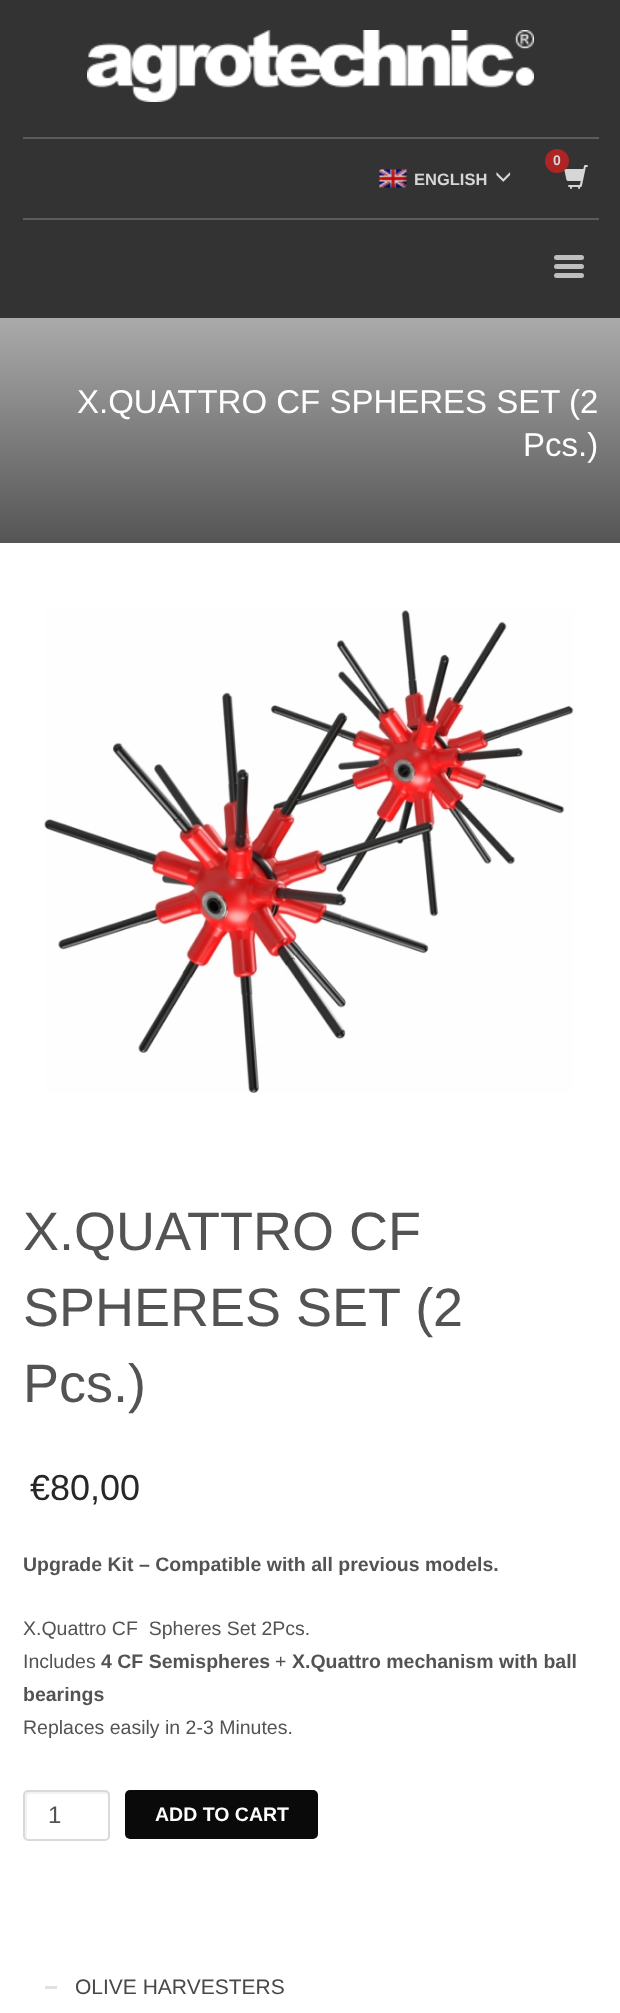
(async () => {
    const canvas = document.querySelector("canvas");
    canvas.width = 620;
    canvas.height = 2013;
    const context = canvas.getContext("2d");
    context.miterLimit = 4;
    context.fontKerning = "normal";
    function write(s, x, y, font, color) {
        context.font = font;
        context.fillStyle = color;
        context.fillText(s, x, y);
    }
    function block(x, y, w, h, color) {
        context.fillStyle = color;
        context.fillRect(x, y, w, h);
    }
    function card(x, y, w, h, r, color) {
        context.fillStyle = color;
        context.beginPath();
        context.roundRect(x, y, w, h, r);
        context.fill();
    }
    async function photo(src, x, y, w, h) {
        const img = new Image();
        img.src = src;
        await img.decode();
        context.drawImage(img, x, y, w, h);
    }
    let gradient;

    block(0, 0, 620, 2013, "rgb(255, 255, 255)");
    block(0, 0, 620, 318, "rgb(51, 51, 51)");
    await photo("media/1.png", 87, 30, 447, 72);
    block(23, 137, 576, 2, "rgb(92, 92, 92)");
    await photo("media/2.png", 564, 165, 24, 24);
    context.fillStyle = "rgba(205, 33, 34, 0.8)";
    context.beginPath();
    context.arc(557, 161, 12, 0, Math.PI * 2);
    context.fill();
    write("0", 553, 165, "bold 14px Liberation Sans", "rgb(214, 214, 214)");
    await photo("media/3.png", 379, 169, 28, 19);
    write("ENGLISH", 414, 185, "bold 16.5px Liberation Sans", "rgb(214, 214, 214)");
    await photo("media/4.png", 496, 172, 15, 10);
    block(23, 218, 576, 2, "rgb(92, 92, 92)");
    card(554, 255, 30, 5, 2.5, "rgb(190, 190, 190)");
    card(554, 264, 30, 5, 2.5, "rgb(190, 190, 190)");
    card(554, 273, 30, 5, 2.5, "rgb(190, 190, 190)");
    gradient = context.createLinearGradient(311, 318, 311, 543);
    gradient.addColorStop(0, "rgb(170, 170, 170)");
    gradient.addColorStop(1, "rgb(85, 85, 85)");
    context.fillStyle = gradient;
    context.fillRect(0, 318, 620, 225);
    write("X.QUATTRO CF SPHERES SET (2", 77, 413, "33px Liberation Sans", "rgb(255, 255, 255)");
    write("Pcs.)", 523, 456, "33px Liberation Sans", "rgb(255, 255, 255)");
    await photo("media/5.png", 44, 610, 530, 483);
    write("X.QUATTRO CF", 23, 1250, "54px Liberation Sans", "rgb(83, 83, 83)");
    write("SPHERES SET (2", 23, 1326, "54px Liberation Sans", "rgb(83, 83, 83)");
    write("Pcs.)", 23, 1402, "54px Liberation Sans", "rgb(83, 83, 83)");
    write("€80,00", 30, 1500, "36px Liberation Sans", "rgb(40, 40, 40)");
    write("Upgrade Kit – Compatible with all previous models.", 23, 1571, "bold 19.5px Liberation Sans", "rgb(83, 83, 83)");
    write("Χ.Quattro CF  Spheres Set 2Pcs.", 23, 1635, "19.5px Liberation Sans", "rgb(83, 83, 83)");
    write("Includes", 23, 1668, "19.5px Liberation Sans", "rgb(83, 83, 83)");
    write("4 CF Semispheres", 101, 1668, "bold 19.5px Liberation Sans", "rgb(83, 83, 83)");
    write("+", 275, 1668, "19.5px Liberation Sans", "rgb(83, 83, 83)");
    write("X.Quattro mechanism with ball", 292, 1668, "bold 19.5px Liberation Sans", "rgb(83, 83, 83)");
    write("bearings", 23, 1701, "bold 19.5px Liberation Sans", "rgb(83, 83, 83)");
    write("Replaces easily in 2-3 Minutes.", 23, 1734, "19.5px Liberation Sans", "rgb(83, 83, 83)");
    context.fillStyle = "rgb(242, 242, 242)";
    context.beginPath();
    context.moveTo(30, 1794);
    context.lineTo(108, 1794);
    context.bezierCurveTo(108, 1792, 107, 1791, 105, 1791);
    context.lineTo(27, 1791);
    context.bezierCurveTo(25, 1791, 24, 1792, 24, 1794);
    context.lineTo(24, 1836);
    context.bezierCurveTo(24, 1838, 25, 1839, 27, 1839);
    context.lineTo(27, 1796);
    context.lineTo(28, 1795);
    context.closePath();
    context.fill();
    context.beginPath();
    context.roundRect(24, 1791, 85, 49, 4);
    context.strokeStyle = "rgb(217, 217, 217)";
    context.lineWidth = 2;
    context.stroke();
    write("1", 48, 1823, "24px Liberation Sans", "rgb(83, 83, 83)");
    card(125, 1790, 193, 49, 5, "rgb(10, 10, 10)");
    write("ADD TO CART", 155, 1821, "bold 19.5px Liberation Sans", "rgb(255, 255, 255)");
    block(45, 1986, 12, 3, "rgb(225, 225, 225)");
    write("OLIVE HARVESTERS", 75, 1994, "21px Liberation Sans", "rgb(72, 72, 72)");
})();
